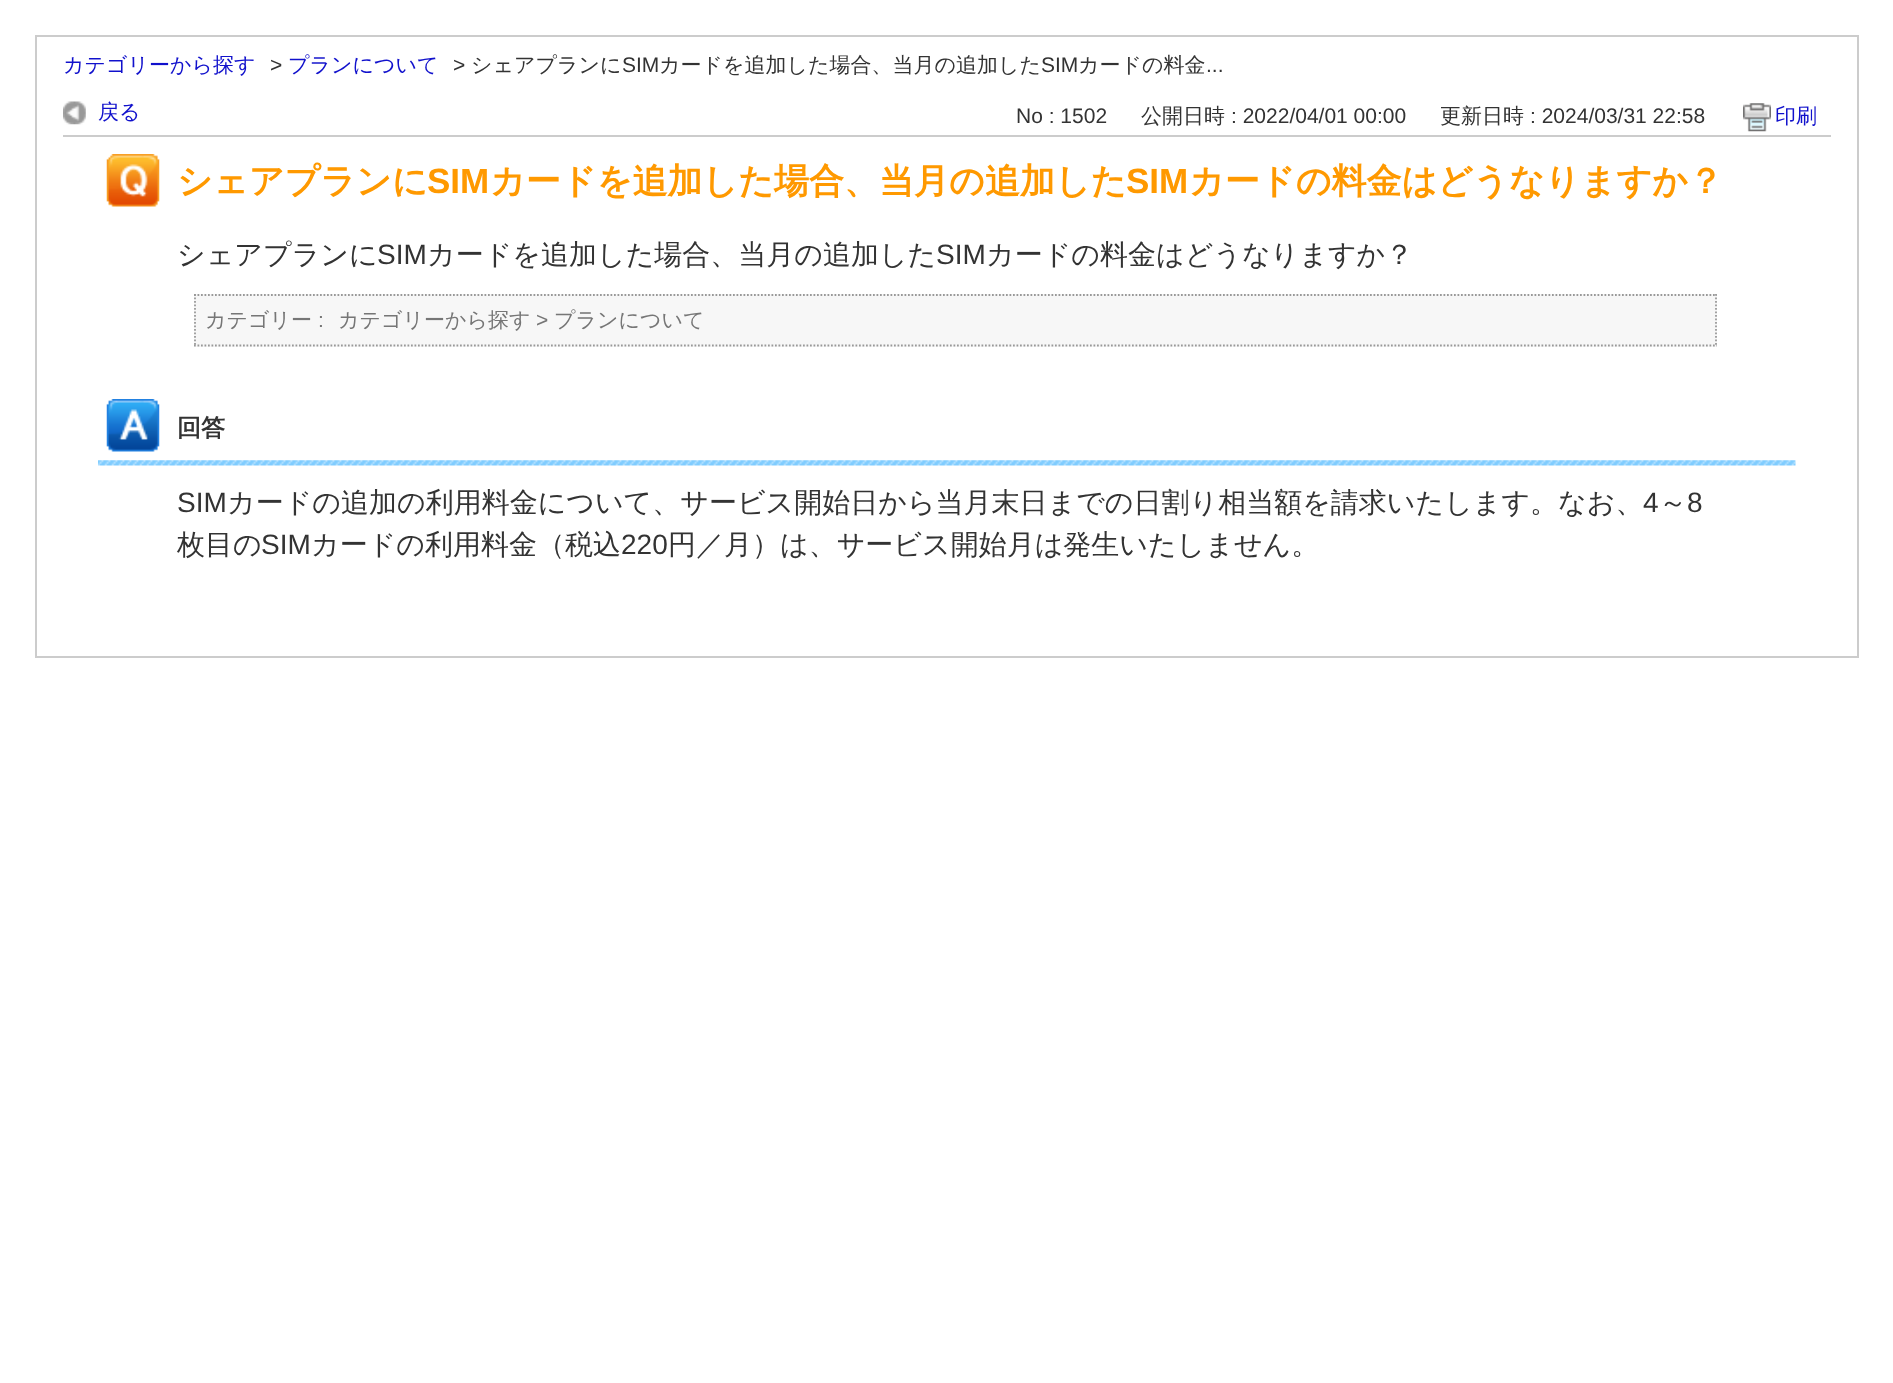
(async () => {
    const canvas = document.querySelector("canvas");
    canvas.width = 1893;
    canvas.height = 1383;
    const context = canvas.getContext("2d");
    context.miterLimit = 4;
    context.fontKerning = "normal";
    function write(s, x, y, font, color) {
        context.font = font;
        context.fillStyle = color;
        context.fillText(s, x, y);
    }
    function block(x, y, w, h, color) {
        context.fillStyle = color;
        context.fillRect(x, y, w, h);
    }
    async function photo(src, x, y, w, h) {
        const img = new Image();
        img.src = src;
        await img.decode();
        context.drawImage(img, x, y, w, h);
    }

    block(0, 0, 1893, 1383, "rgb(255, 255, 255)");
    context.strokeStyle = "rgb(204, 204, 204)";
    context.lineWidth = 2;
    context.strokeRect(36, 36, 1822, 621);
    write("カテゴリーから探す", 63, 72, "500 21px WenQuanYi Zen Hei", "rgb(17, 17, 204)");
    write(">", 270, 72, "21px Liberation Sans", "rgb(51, 51, 51)");
    write("プランについて", 288, 72, "500 21px WenQuanYi Zen Hei", "rgb(17, 17, 204)");
    write(">", 453, 72, "21px Liberation Sans", "rgb(51, 51, 51)");
    write("シェアプランに", 471, 72, "500 21px WenQuanYi Zen Hei", "rgb(51, 51, 51)");
    write("SIM", 622, 72, "21px Liberation Sans", "rgb(51, 51, 51)");
    write("カードを追加した場合、当月の追加した", 659, 72, "500 21px WenQuanYi Zen Hei", "rgb(51, 51, 51)");
    write("SIM", 1041, 72, "21px Liberation Sans", "rgb(51, 51, 51)");
    write("カードの料金", 1078, 72, "500 21px WenQuanYi Zen Hei", "rgb(51, 51, 51)");
    write("...", 1206, 72, "21px Liberation Sans", "rgb(51, 51, 51)");
    block(63, 135, 1768, 2, "rgb(204, 204, 204)");
    await photo("media/1.png", 63, 101, 23, 24);
    write("戻る", 98, 119, "500 21px WenQuanYi Zen Hei", "rgb(17, 17, 204)");
    write("No : 1502", 1016, 123, "21px Liberation Sans", "rgb(51, 51, 51)");
    write("公開日時", 1141, 123, "500 21px WenQuanYi Zen Hei", "rgb(51, 51, 51)");
    write(": 2022/04/01 00:00", 1231, 123, "21px Liberation Sans", "rgb(51, 51, 51)");
    write("更新日時", 1440, 123, "500 21px WenQuanYi Zen Hei", "rgb(51, 51, 51)");
    write(": 2024/03/31 22:58", 1530, 123, "21px Liberation Sans", "rgb(51, 51, 51)");
    await photo("media/2.png", 1743, 103, 28, 29);
    write("印刷", 1775, 123, "500 21px WenQuanYi Zen Hei", "rgb(17, 17, 204)");
    await photo("media/3.png", 106, 154, 54, 53);
    write("シェアプランに", 177, 193, "bold 35px WenQuanYi Zen Hei", "rgb(255, 153, 0)");
    write("SIM", 427, 193, "bold 35px Liberation Sans", "rgb(255, 153, 0)");
    write("カードを追加した場合、当月の追加した", 490, 193, "bold 35px WenQuanYi Zen Hei", "rgb(255, 153, 0)");
    write("SIM", 1126, 193, "bold 35px Liberation Sans", "rgb(255, 153, 0)");
    write("カードの料金はどうなりますか？", 1189, 193, "bold 35px WenQuanYi Zen Hei", "rgb(255, 153, 0)");
    write("シェアプランに", 177, 264, "500 28px WenQuanYi Zen Hei", "rgb(51, 51, 51)");
    write("SIM", 377, 264, "28px Liberation Sans", "rgb(51, 51, 51)");
    write("カードを追加した場合、当月の追加した", 427, 264, "500 28px WenQuanYi Zen Hei", "rgb(51, 51, 51)");
    write("SIM", 936, 264, "28px Liberation Sans", "rgb(51, 51, 51)");
    write("カードの料金はどうなりますか？", 986, 264, "500 28px WenQuanYi Zen Hei", "rgb(51, 51, 51)");
    block(194, 294, 1523, 53, "rgb(247, 247, 247)");
    context.beginPath();
    context.moveTo(194, 295);
    context.lineTo(1717, 295);
    context.strokeStyle = "rgb(153, 153, 153)";
    context.lineWidth = 1.8;
    context.setLineDash([1.75, 1.75]);
    context.stroke();
    context.beginPath();
    context.moveTo(1716, 294);
    context.lineTo(1716, 346.5);
    context.stroke();
    context.beginPath();
    context.moveTo(194, 345.5);
    context.lineTo(1717, 345.5);
    context.stroke();
    context.beginPath();
    context.moveTo(195, 294);
    context.lineTo(195, 346.5);
    context.stroke();
    write("カテゴリー", 205, 327, "500 21px WenQuanYi Zen Hei", "rgb(118, 118, 118)");
    write(":", 318, 327, "21px Liberation Sans", "rgb(118, 118, 118)");
    write("カテゴリーから探す", 338, 327, "500 21px WenQuanYi Zen Hei", "rgb(118, 118, 118)");
    write(">", 536, 327, "21px Liberation Sans", "rgb(118, 118, 118)");
    write("プランについて", 554, 327, "500 21px WenQuanYi Zen Hei", "rgb(118, 118, 118)");
    await photo("media/4.png", 98, 460, 1698, 6);
    await photo("media/5.png", 106, 399, 54, 53);
    write("回答", 177, 436, "bold 24px WenQuanYi Zen Hei", "rgb(51, 51, 51)");
    write("SIM", 177, 512, "28px Liberation Sans", "rgb(51, 51, 51)");
    write("カードの追加の利用料金について、サービス開始日から当月末日までの日割り相当額を請求いたします。なお、", 227, 512, "500 28px WenQuanYi Zen Hei", "rgb(51, 51, 51)");
    write("4", 1643, 512, "28px Liberation Sans", "rgb(51, 51, 51)");
    write("～", 1659, 512, "500 28px WenQuanYi Zen Hei", "rgb(51, 51, 51)");
    write("8", 1687, 512, "28px Liberation Sans", "rgb(51, 51, 51)");
    write("枚目の", 177, 554, "500 28px WenQuanYi Zen Hei", "rgb(51, 51, 51)");
    write("SIM", 261, 554, "28px Liberation Sans", "rgb(51, 51, 51)");
    write("カードの利用料金（税込", 311, 554, "500 28px WenQuanYi Zen Hei", "rgb(51, 51, 51)");
    write("220", 621, 554, "28px Liberation Sans", "rgb(51, 51, 51)");
    write("円／月）は、サービス開始月は発生いたしません。", 668, 554, "500 28px WenQuanYi Zen Hei", "rgb(51, 51, 51)");
})();
